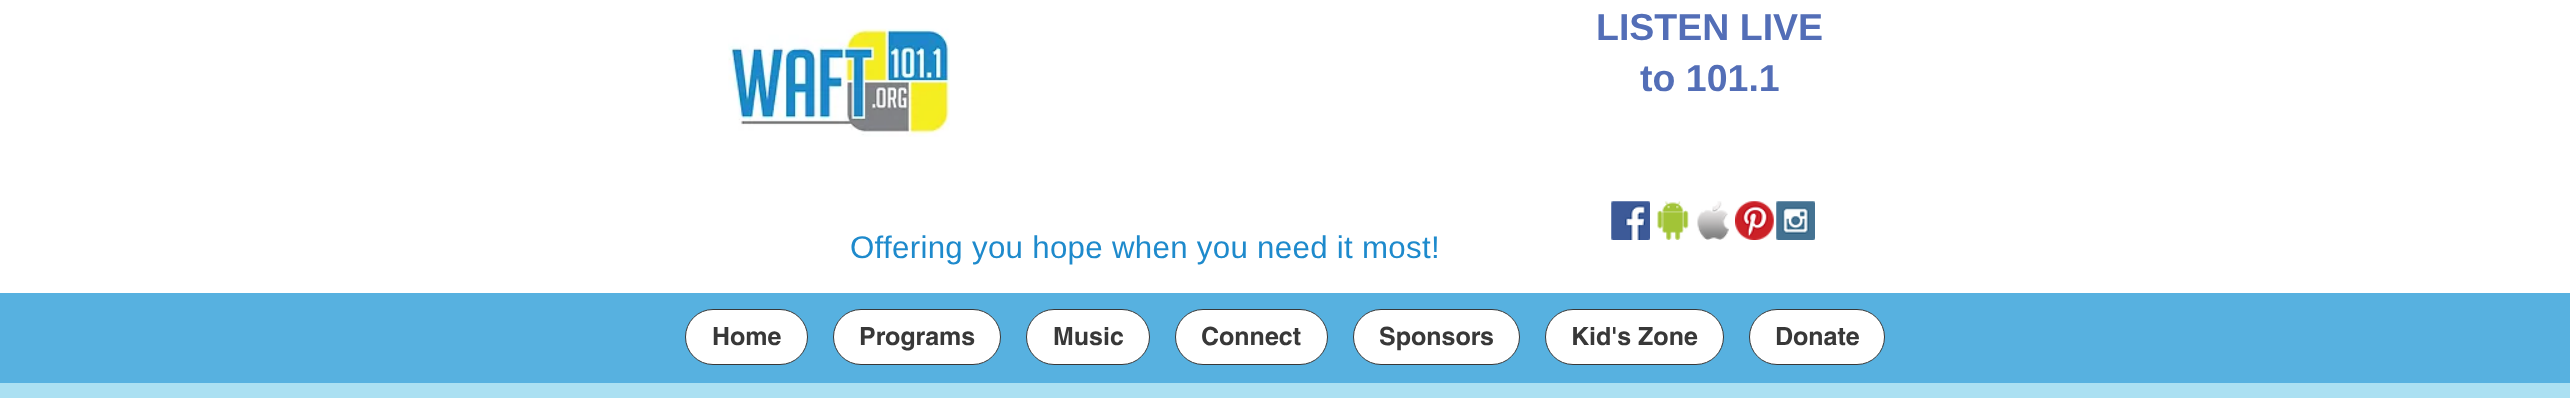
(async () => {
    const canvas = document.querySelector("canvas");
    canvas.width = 2570;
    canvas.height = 398;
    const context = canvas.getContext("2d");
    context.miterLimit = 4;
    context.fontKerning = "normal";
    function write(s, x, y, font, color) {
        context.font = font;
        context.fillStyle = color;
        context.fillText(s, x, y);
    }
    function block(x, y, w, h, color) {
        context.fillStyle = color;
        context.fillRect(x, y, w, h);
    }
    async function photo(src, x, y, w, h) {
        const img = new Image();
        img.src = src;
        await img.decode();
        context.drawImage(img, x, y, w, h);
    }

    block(0, 0, 2570, 398, "rgb(171, 224, 242)");
    block(0, 0, 2570, 293, "rgb(255, 255, 255)");
    await photo("media/1.png", 728, 28, 222, 109);
    write("LISTEN LIVE", 1596, 40, "bold 37.5px Liberation Sans", "rgb(83, 110, 183)");
    write("to 101.1", 1640, 91, "bold 37.5px Liberation Sans", "rgb(83, 110, 183)");
    await photo("media/2.png", 1611, 201, 39, 39);
    await photo("media/3.png", 1657, 201, 32, 39);
    await photo("media/4.png", 1697, 201, 32, 39);
    await photo("media/5.png", 1735, 201, 39, 39);
    await photo("media/6.png", 1776, 201, 39, 39);
    context.letterSpacing = "0.3px";
    write("Offering you hope when you need it most!", 850, 258, "31.25px Liberation Sans", "rgb(30, 138, 204)");
    block(0, 293, 2570, 90, "rgb(87, 177, 224)");
    context.fillStyle = "rgb(255, 255, 255)";
    context.beginPath();
    context.roundRect(685.5, 309.5, 122, 55, 27.5);
    context.fill();
    context.strokeStyle = "rgb(56, 56, 56)";
    context.stroke();
    context.letterSpacing = "0px";
    write("Home", 712, 345, "bold 25px helvetica", "rgb(56, 56, 56)");
    context.fillStyle = "rgb(255, 255, 255)";
    context.beginPath();
    context.roundRect(833.5, 309.5, 167, 55, 27.5);
    context.fill();
    context.stroke();
    write("Programs", 859, 345, "bold 25px helvetica", "rgb(56, 56, 56)");
    context.fillStyle = "rgb(255, 255, 255)";
    context.beginPath();
    context.roundRect(1026.5, 309.5, 123, 55, 27.5);
    context.fill();
    context.stroke();
    write("Music", 1053, 345, "bold 25px helvetica", "rgb(56, 56, 56)");
    context.fillStyle = "rgb(255, 255, 255)";
    context.beginPath();
    context.roundRect(1175.5, 309.5, 152, 55, 27.5);
    context.fill();
    context.stroke();
    write("Connect", 1201, 345, "bold 25px helvetica", "rgb(56, 56, 56)");
    context.fillStyle = "rgb(255, 255, 255)";
    context.beginPath();
    context.roundRect(1353.5, 309.5, 166, 55, 27.5);
    context.fill();
    context.stroke();
    write("Sponsors", 1379, 345, "bold 25px helvetica", "rgb(56, 56, 56)");
    context.fillStyle = "rgb(255, 255, 255)";
    context.beginPath();
    context.roundRect(1545.5, 309.5, 178, 55, 27.5);
    context.fill();
    context.stroke();
    write("Kid's Zone", 1571, 345, "bold 25px helvetica", "rgb(56, 56, 56)");
    context.fillStyle = "rgb(255, 255, 255)";
    context.beginPath();
    context.roundRect(1749.5, 309.5, 135, 55, 27.5);
    context.fill();
    context.stroke();
    write("Donate", 1775, 345, "bold 25px helvetica", "rgb(56, 56, 56)");
})();
